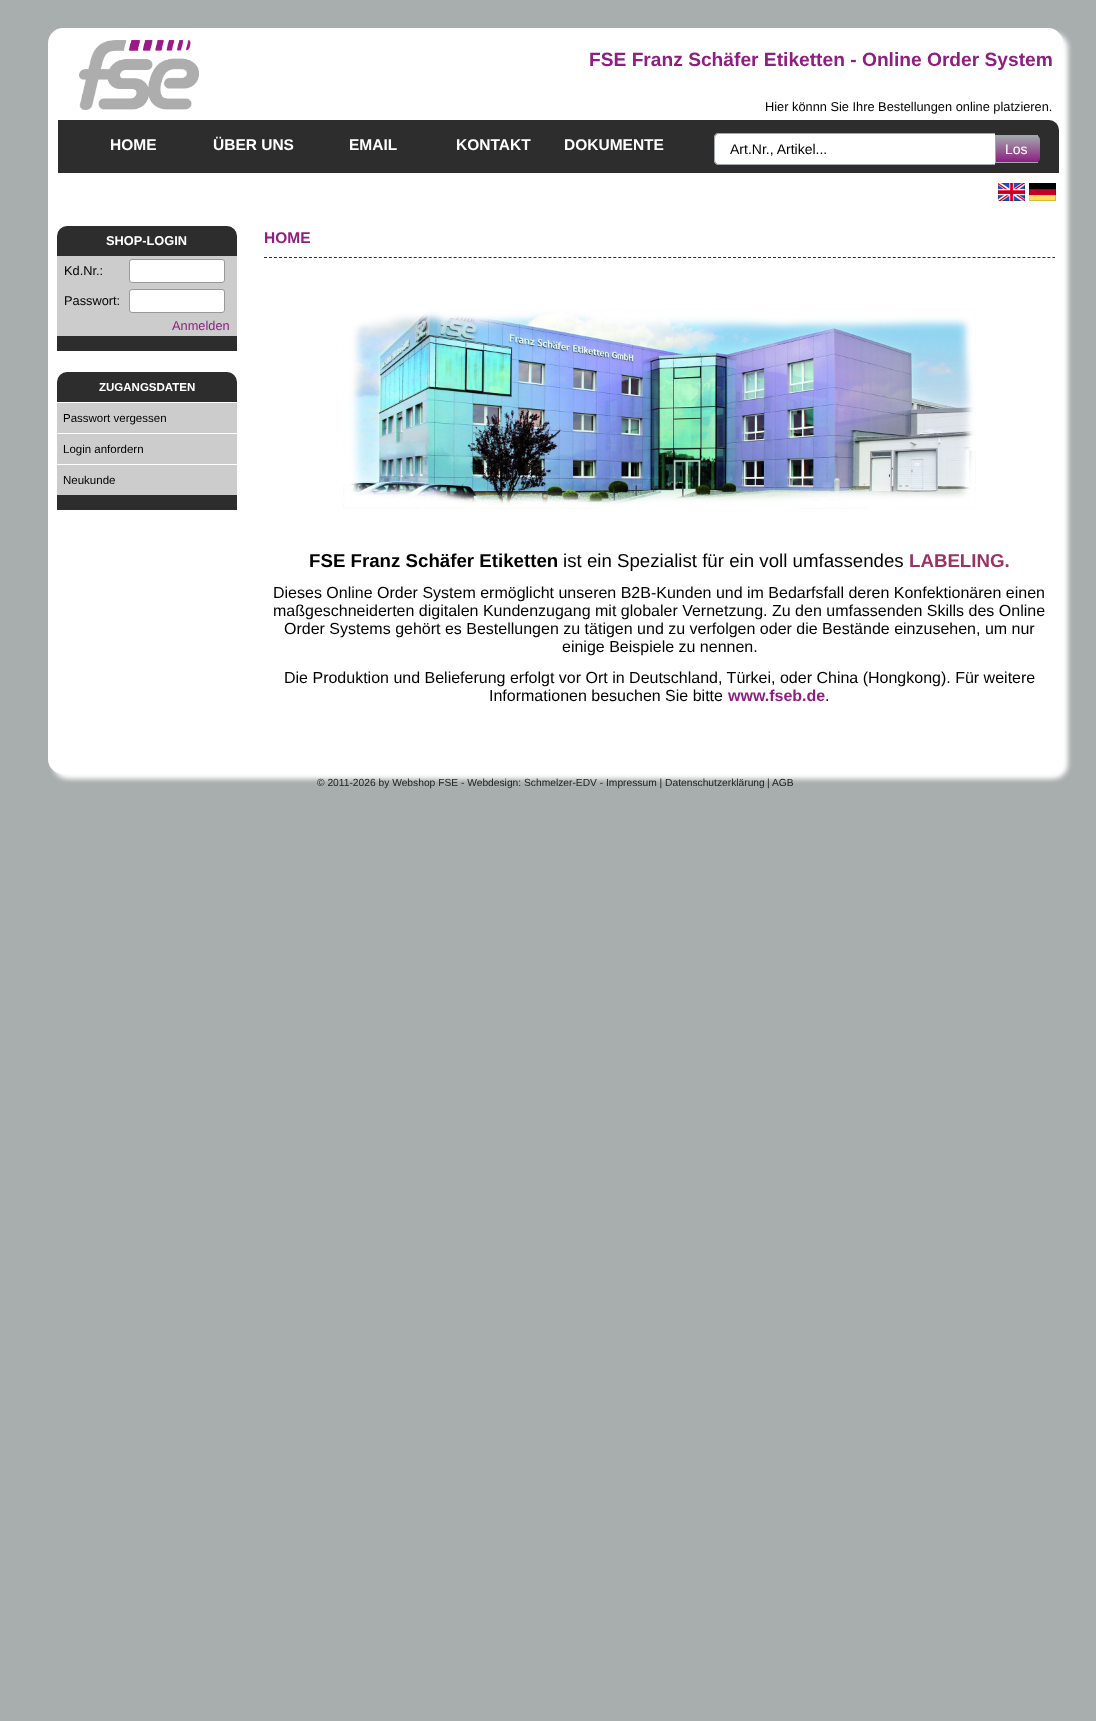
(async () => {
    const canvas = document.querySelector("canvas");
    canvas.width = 1096;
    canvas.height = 1721;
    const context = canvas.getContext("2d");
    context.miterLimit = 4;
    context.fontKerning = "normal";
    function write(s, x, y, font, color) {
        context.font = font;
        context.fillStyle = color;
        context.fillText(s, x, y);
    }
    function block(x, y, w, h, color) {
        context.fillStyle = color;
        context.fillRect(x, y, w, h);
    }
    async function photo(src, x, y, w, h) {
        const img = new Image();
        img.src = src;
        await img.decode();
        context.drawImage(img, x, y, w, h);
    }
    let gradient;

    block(0, 0, 1096, 1721, "rgb(168, 173, 173)");
    context.fillStyle = "rgb(255, 255, 255)";
    context.filter = "blur(2.5px)";
    context.beginPath();
    context.roundRect(53, 33, 1015, 746, 15);
    context.fill();
    context.filter = "none";
    context.beginPath();
    context.roundRect(49, 29, 1013, 744, 14);
    context.fill();
    context.strokeStyle = "rgb(255, 255, 255)";
    context.lineWidth = 2;
    context.stroke();
    await photo("media/1.png", 79, 40, 120, 70);
    write("FSE Franz Schäfer Etiketten - Online Order System", 589, 66, "bold 19.2px Liberation Sans", "rgb(142, 30, 129)");
    write("Hier könnn Sie Ihre Bestellungen online platzieren.", 765, 111, "12.8px Liberation Sans", "rgb(0, 0, 0)");
    context.fillStyle = "rgb(45, 45, 45)";
    context.beginPath();
    context.roundRect(58, 120, 1001, 53, [0, 10, 0, 0]);
    context.fill();
    write("HOME", 110, 150, "bold 15.5px Liberation Sans", "rgb(255, 255, 255)");
    write("ÜBER UNS", 213, 150, "bold 15.5px Liberation Sans", "rgb(255, 255, 255)");
    write("EMAIL", 349, 150, "bold 15.5px Liberation Sans", "rgb(255, 255, 255)");
    write("KONTAKT", 456, 150, "bold 15.5px Liberation Sans", "rgb(255, 255, 255)");
    write("DOKUMENTE", 564, 150, "bold 15.5px Liberation Sans", "rgb(255, 255, 255)");
    context.beginPath();
    context.roundRect(714, 133, 281, 32, [5, 0, 0, 5]);
    context.fill();
    context.fillStyle = "rgb(161, 168, 171)";
    context.beginPath();
    context.moveTo(719, 133);
    context.lineTo(995, 133);
    context.lineTo(995, 165);
    context.lineTo(719, 165);
    context.bezierCurveTo(716, 165, 714, 163, 714, 160);
    context.lineTo(714, 138);
    context.bezierCurveTo(714, 135, 716, 133, 719, 133);
    context.closePath();
    context.moveTo(719, 134);
    context.lineTo(995, 134);
    context.lineTo(995, 164);
    context.lineTo(719, 164);
    context.bezierCurveTo(717, 164, 715, 162, 715, 160);
    context.lineTo(715, 138);
    context.bezierCurveTo(715, 136, 717, 134, 719, 134);
    context.closePath();
    context.fill("evenodd");
    write("Art.Nr., Artikel...", 730, 154, "14px Liberation Sans", "rgb(0, 0, 0)");
    context.save();
    context.beginPath();
    context.roundRect(995, 135, 45, 28, [0, 5, 5, 0]);
    context.clip();
    gradient = context.createLinearGradient(996, 136, 996, 162);
    gradient.addColorStop(0, "rgb(161, 168, 171)");
    gradient.addColorStop(1, "rgb(142, 30, 129)");
    context.fillStyle = gradient;
    context.fillRect(996, 136, 44, 26);
    context.restore();
    block(995, 135, 43, 1, "rgb(161, 168, 171)");
    block(995, 162, 43, 1, "rgb(161, 168, 171)");
    block(995, 135, 1, 28, "rgb(161, 168, 171)");
    write("Los", 1005, 154, "14px Liberation Sans", "rgb(255, 255, 255)");
    await photo("media/2.png", 998, 183, 27, 18);
    await photo("media/3.png", 1029, 183, 27, 18);
    context.fillStyle = "rgb(45, 45, 45)";
    context.beginPath();
    context.roundRect(57, 226, 180, 30, [10, 10, 0, 0]);
    context.fill();
    write("SHOP-LOGIN", 106, 245, "bold 12.8px Liberation Sans", "rgb(255, 255, 255)");
    block(57, 256, 180, 80, "rgb(204, 204, 204)");
    write("Kd.Nr.:", 64, 275, "12.8px Liberation Sans", "rgb(0, 0, 0)");
    context.fillStyle = "rgb(255, 255, 255)";
    context.beginPath();
    context.roundRect(129.5, 259.5, 95, 23, 2.5);
    context.fill();
    context.strokeStyle = "rgb(153, 153, 153)";
    context.lineWidth = 1;
    context.stroke();
    write("Passwort:", 64, 305, "12.8px Liberation Sans", "rgb(0, 0, 0)");
    context.fillStyle = "rgb(255, 255, 255)";
    context.beginPath();
    context.roundRect(129.5, 289.5, 95, 23, 2.5);
    context.fill();
    context.stroke();
    write("Anmelden", 172, 330, "12.8px Liberation Sans", "rgb(142, 30, 129)");
    block(57, 336, 180, 15, "rgb(45, 45, 45)");
    context.beginPath();
    context.roundRect(57, 372, 180, 30, [10, 10, 0, 0]);
    context.fill();
    write("ZUGANGSDATEN", 99, 391, "bold 11.5px Liberation Sans", "rgb(255, 255, 255)");
    block(57, 403, 180, 30, "rgb(204, 204, 204)");
    write("Passwort vergessen", 63, 422, "11.5px Liberation Sans", "rgb(0, 0, 0)");
    block(57, 434, 180, 30, "rgb(204, 204, 204)");
    write("Login anfordern", 63, 453, "11.5px Liberation Sans", "rgb(0, 0, 0)");
    block(57, 465, 180, 30, "rgb(204, 204, 204)");
    write("Neukunde", 63, 484, "11.5px Liberation Sans", "rgb(0, 0, 0)");
    block(57, 495, 180, 15, "rgb(45, 45, 45)");
    write("HOME", 264, 243, "bold 15.5px Liberation Sans", "rgb(142, 30, 129)");
    context.beginPath();
    context.moveTo(264, 257.5);
    context.lineTo(1055, 257.5);
    context.strokeStyle = "rgb(45, 45, 45)";
    context.setLineDash([3, 1.99]);
    context.stroke();
    await photo("media/4.png", 343, 309, 633, 200);
    write("FSE Franz Schäfer Etiketten", 309, 567, "bold 18.7px Liberation Sans", "rgb(0, 0, 0)");
    write("ist ein Spezialist für ein voll umfassendes", 563, 567, "18.7px Liberation Sans", "rgb(0, 0, 0)");
    write("LABELING.", 909, 567, "bold 18.7px Liberation Sans", "rgb(153, 51, 102)");
    write("Dieses Online Order System ermöglicht unseren B2B-Kunden und im Bedarfsfall deren Konfektionären einen", 273, 598, "16px Liberation Sans", "rgb(0, 0, 0)");
    write("maßgeschneiderten digitalen Kundenzugang mit globaler Vernetzung. Zu den umfassenden Skills des Online", 273, 616, "16px Liberation Sans", "rgb(0, 0, 0)");
    write("Order Systems gehört es Bestellungen zu tätigen und zu verfolgen oder die Bestände einzusehen, um nur", 284, 634, "16px Liberation Sans", "rgb(0, 0, 0)");
    write("einige Beispiele zu nennen.", 562, 652, "16px Liberation Sans", "rgb(0, 0, 0)");
    write("Die Produktion und Belieferung erfolgt vor Ort in Deutschland, Türkei, oder China (Hongkong). Für weitere", 284, 683, "16px Liberation Sans", "rgb(0, 0, 0)");
    write("Informationen besuchen Sie bitte", 489, 701, "16px Liberation Sans", "rgb(0, 0, 0)");
    write("www.fseb.de", 728, 701, "bold 16px Liberation Sans", "rgb(142, 30, 129)");
    write(".", 825, 701, "16px Liberation Sans", "rgb(0, 0, 0)");
    write("© 2011-2026 by Webshop FSE - Webdesign: Schmelzer-EDV - Impressum | Datenschutzerklärung", 317, 786, "10.25px Liberation Sans", "rgb(30, 31, 31)");
    write("| AGB", 767, 786, "10.25px Liberation Sans", "rgb(30, 31, 31)");
})();
